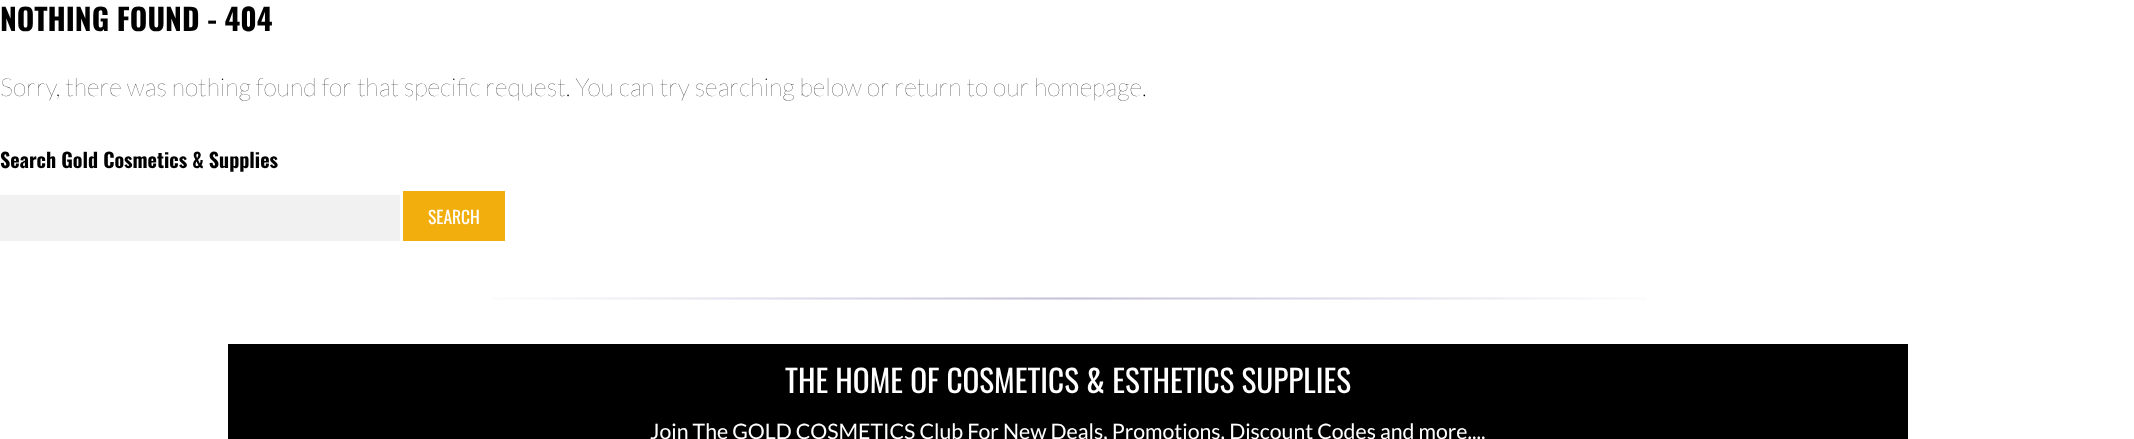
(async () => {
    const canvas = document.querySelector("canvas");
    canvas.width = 2134;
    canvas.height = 439;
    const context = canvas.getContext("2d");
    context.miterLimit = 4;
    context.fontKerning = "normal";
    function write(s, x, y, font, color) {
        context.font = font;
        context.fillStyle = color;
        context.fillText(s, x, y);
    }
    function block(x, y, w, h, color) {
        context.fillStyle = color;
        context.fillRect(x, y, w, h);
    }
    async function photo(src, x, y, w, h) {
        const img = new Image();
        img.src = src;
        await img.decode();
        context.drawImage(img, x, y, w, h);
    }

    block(0, 0, 2134, 439, "rgb(255, 255, 255)");
    write("NOTHING FOUND - 404", 0, 31, "bold 30px Oswald", "rgb(0, 0, 0)");
    write("Sorry, there was nothing found for that specific request. You can try searching below or return to our homepage.", 0, 96, "100 25px Lato", "rgb(0, 0, 0)");
    write("Search Gold Cosmetics & Supplies", 0, 168, "bold 20px Oswald", "rgb(0, 0, 0)");
    block(0, 195, 400, 46, "rgb(241, 241, 241)");
    block(403, 191, 102, 50, "rgb(241, 174, 13)");
    write("SEARCH", 428, 224, "17.5px Oswald", "rgb(255, 255, 255)");
    await photo("media/1.png", 492, 297, 1154, 3);
    block(228, 344, 1680, 95, "rgb(0, 0, 0)");
    write("THE HOME OF COSMETICS & ESTHETICS SUPPLIES", 785, 393, "31.25px Oswald", "rgb(255, 255, 255)");
    write("Join The GOLD COSMETICS Club For New Deals, Promotions, Discount Codes and more....", 650, 439, "21.25px Lato", "rgb(255, 255, 255)");
})();
